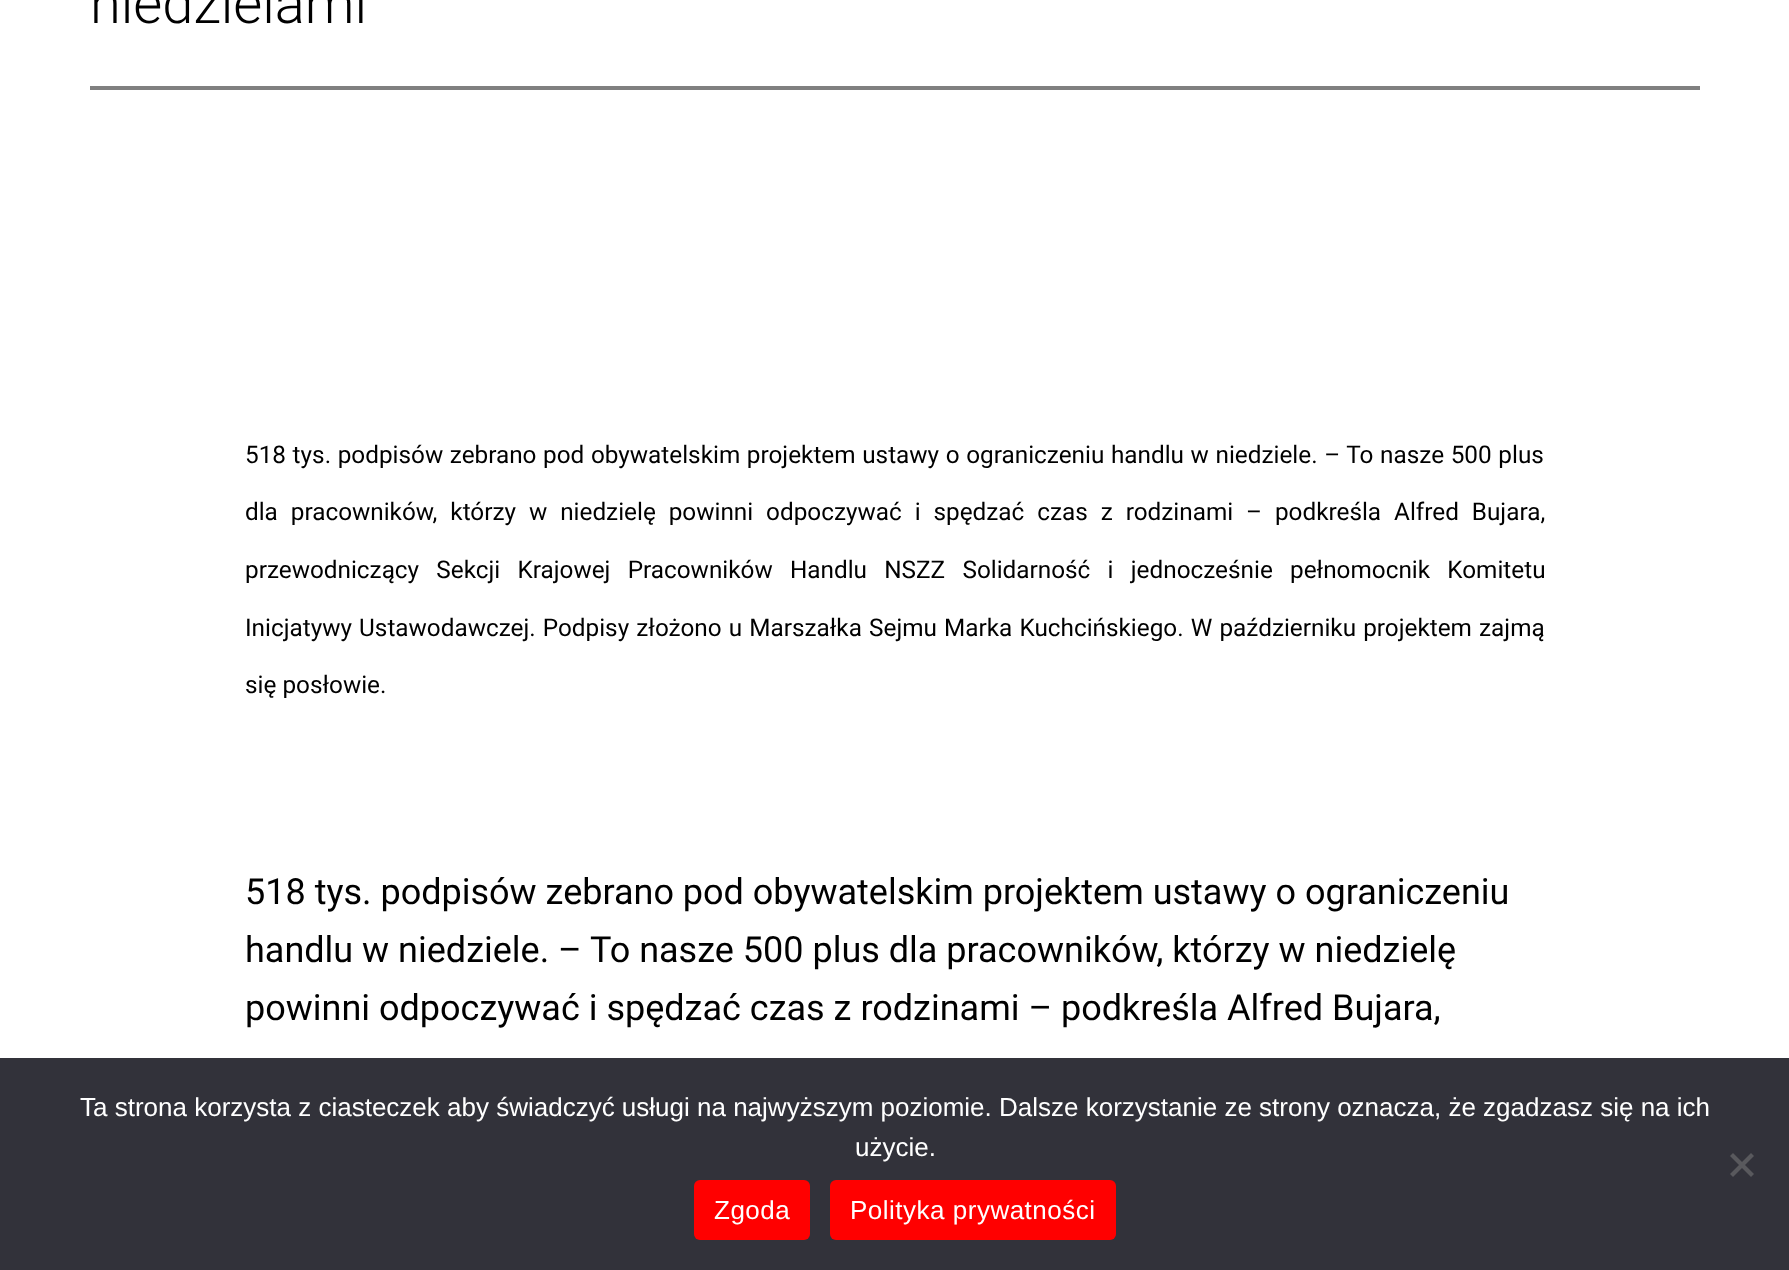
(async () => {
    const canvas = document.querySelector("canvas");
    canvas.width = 1789;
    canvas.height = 1270;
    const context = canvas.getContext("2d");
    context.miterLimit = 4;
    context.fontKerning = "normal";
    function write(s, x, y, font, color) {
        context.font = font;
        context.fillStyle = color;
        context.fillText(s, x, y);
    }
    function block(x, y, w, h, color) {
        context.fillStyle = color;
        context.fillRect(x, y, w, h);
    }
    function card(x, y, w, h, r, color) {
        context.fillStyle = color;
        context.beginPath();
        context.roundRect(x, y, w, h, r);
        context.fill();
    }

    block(0, 0, 1789, 1270, "rgb(255, 255, 255)");
    write("niedzielami", 90, 23, "300 56px Roboto", "rgb(0, 0, 0)");
    block(90, 86, 1610, 4, "rgb(128, 128, 128)");
    context.wordSpacing = "0.6px";
    write("518 tys. podpisów zebrano pod obywatelskim projektem ustawy o ograniczeniu handlu w niedziele. – To nasze 500 plus", 245, 463, "24.32px Roboto", "rgb(0, 0, 0)");
    context.wordSpacing = "6.9px";
    write("dla pracowników, którzy w niedzielę powinni odpoczywać i spędzać czas z rodzinami – podkreśla Alfred Bujara,", 245, 520, "24.32px Roboto", "rgb(0, 0, 0)");
    context.wordSpacing = "11.25px";
    write("przewodniczący Sekcji Krajowej Pracowników Handlu NSZZ Solidarność i jednocześnie pełnomocnik Komitetu", 245, 578, "24.32px Roboto", "rgb(0, 0, 0)");
    context.wordSpacing = "1.1px";
    write("Inicjatywy Ustawodawczej. Podpisy złożono u Marszałka Sejmu Marka Kuchcińskiego. W październiku projektem zajmą", 245, 636, "24.32px Roboto", "rgb(0, 0, 0)");
    context.wordSpacing = "0px";
    write("się posłowie.", 245, 693, "24.32px Roboto", "rgb(0, 0, 0)");
    write("518 tys. podpisów zebrano pod obywatelskim projektem ustawy o ograniczeniu", 245, 904, "36px Roboto", "rgb(0, 0, 0)");
    write("handlu w niedziele. – To nasze 500 plus dla pracowników, którzy w niedzielę", 245, 962, "36px Roboto", "rgb(0, 0, 0)");
    write("powinni odpoczywać i spędzać czas z rodzinami – podkreśla Alfred Bujara,", 245, 1020, "36px Roboto", "rgb(0, 0, 0)");
    block(0, 1058, 1789, 212, "rgb(50, 50, 58)");
    write("Ta strona korzysta z ciasteczek aby świadczyć usługi na najwyższym poziomie. Dalsze korzystanie ze strony oznacza, że zgadzasz się na ich", 80, 1116, "26px Liberation Sans", "rgb(255, 255, 255)");
    write("użycie.", 855, 1156, "26px Liberation Sans", "rgb(255, 255, 255)");
    context.fillStyle = "rgb(89, 89, 93)";
    context.beginPath();
    context.moveTo(1751, 1153);
    context.lineTo(1754, 1156);
    context.lineTo(1733, 1177);
    context.lineTo(1730, 1174);
    context.closePath();
    context.fill();
    context.beginPath();
    context.moveTo(1730, 1156);
    context.lineTo(1733, 1153);
    context.lineTo(1754, 1174);
    context.lineTo(1751, 1177);
    context.closePath();
    context.fill();
    card(694, 1180, 116, 60, 6, "rgb(255, 0, 0)");
    context.letterSpacing = "0.5px";
    write("Zgoda", 714, 1219, "26px Liberation Sans", "rgb(255, 255, 255)");
    card(830, 1180, 286, 60, 6, "rgb(255, 0, 0)");
    write("Polityka prywatności", 850, 1219, "26px Liberation Sans", "rgb(255, 255, 255)");
})();
